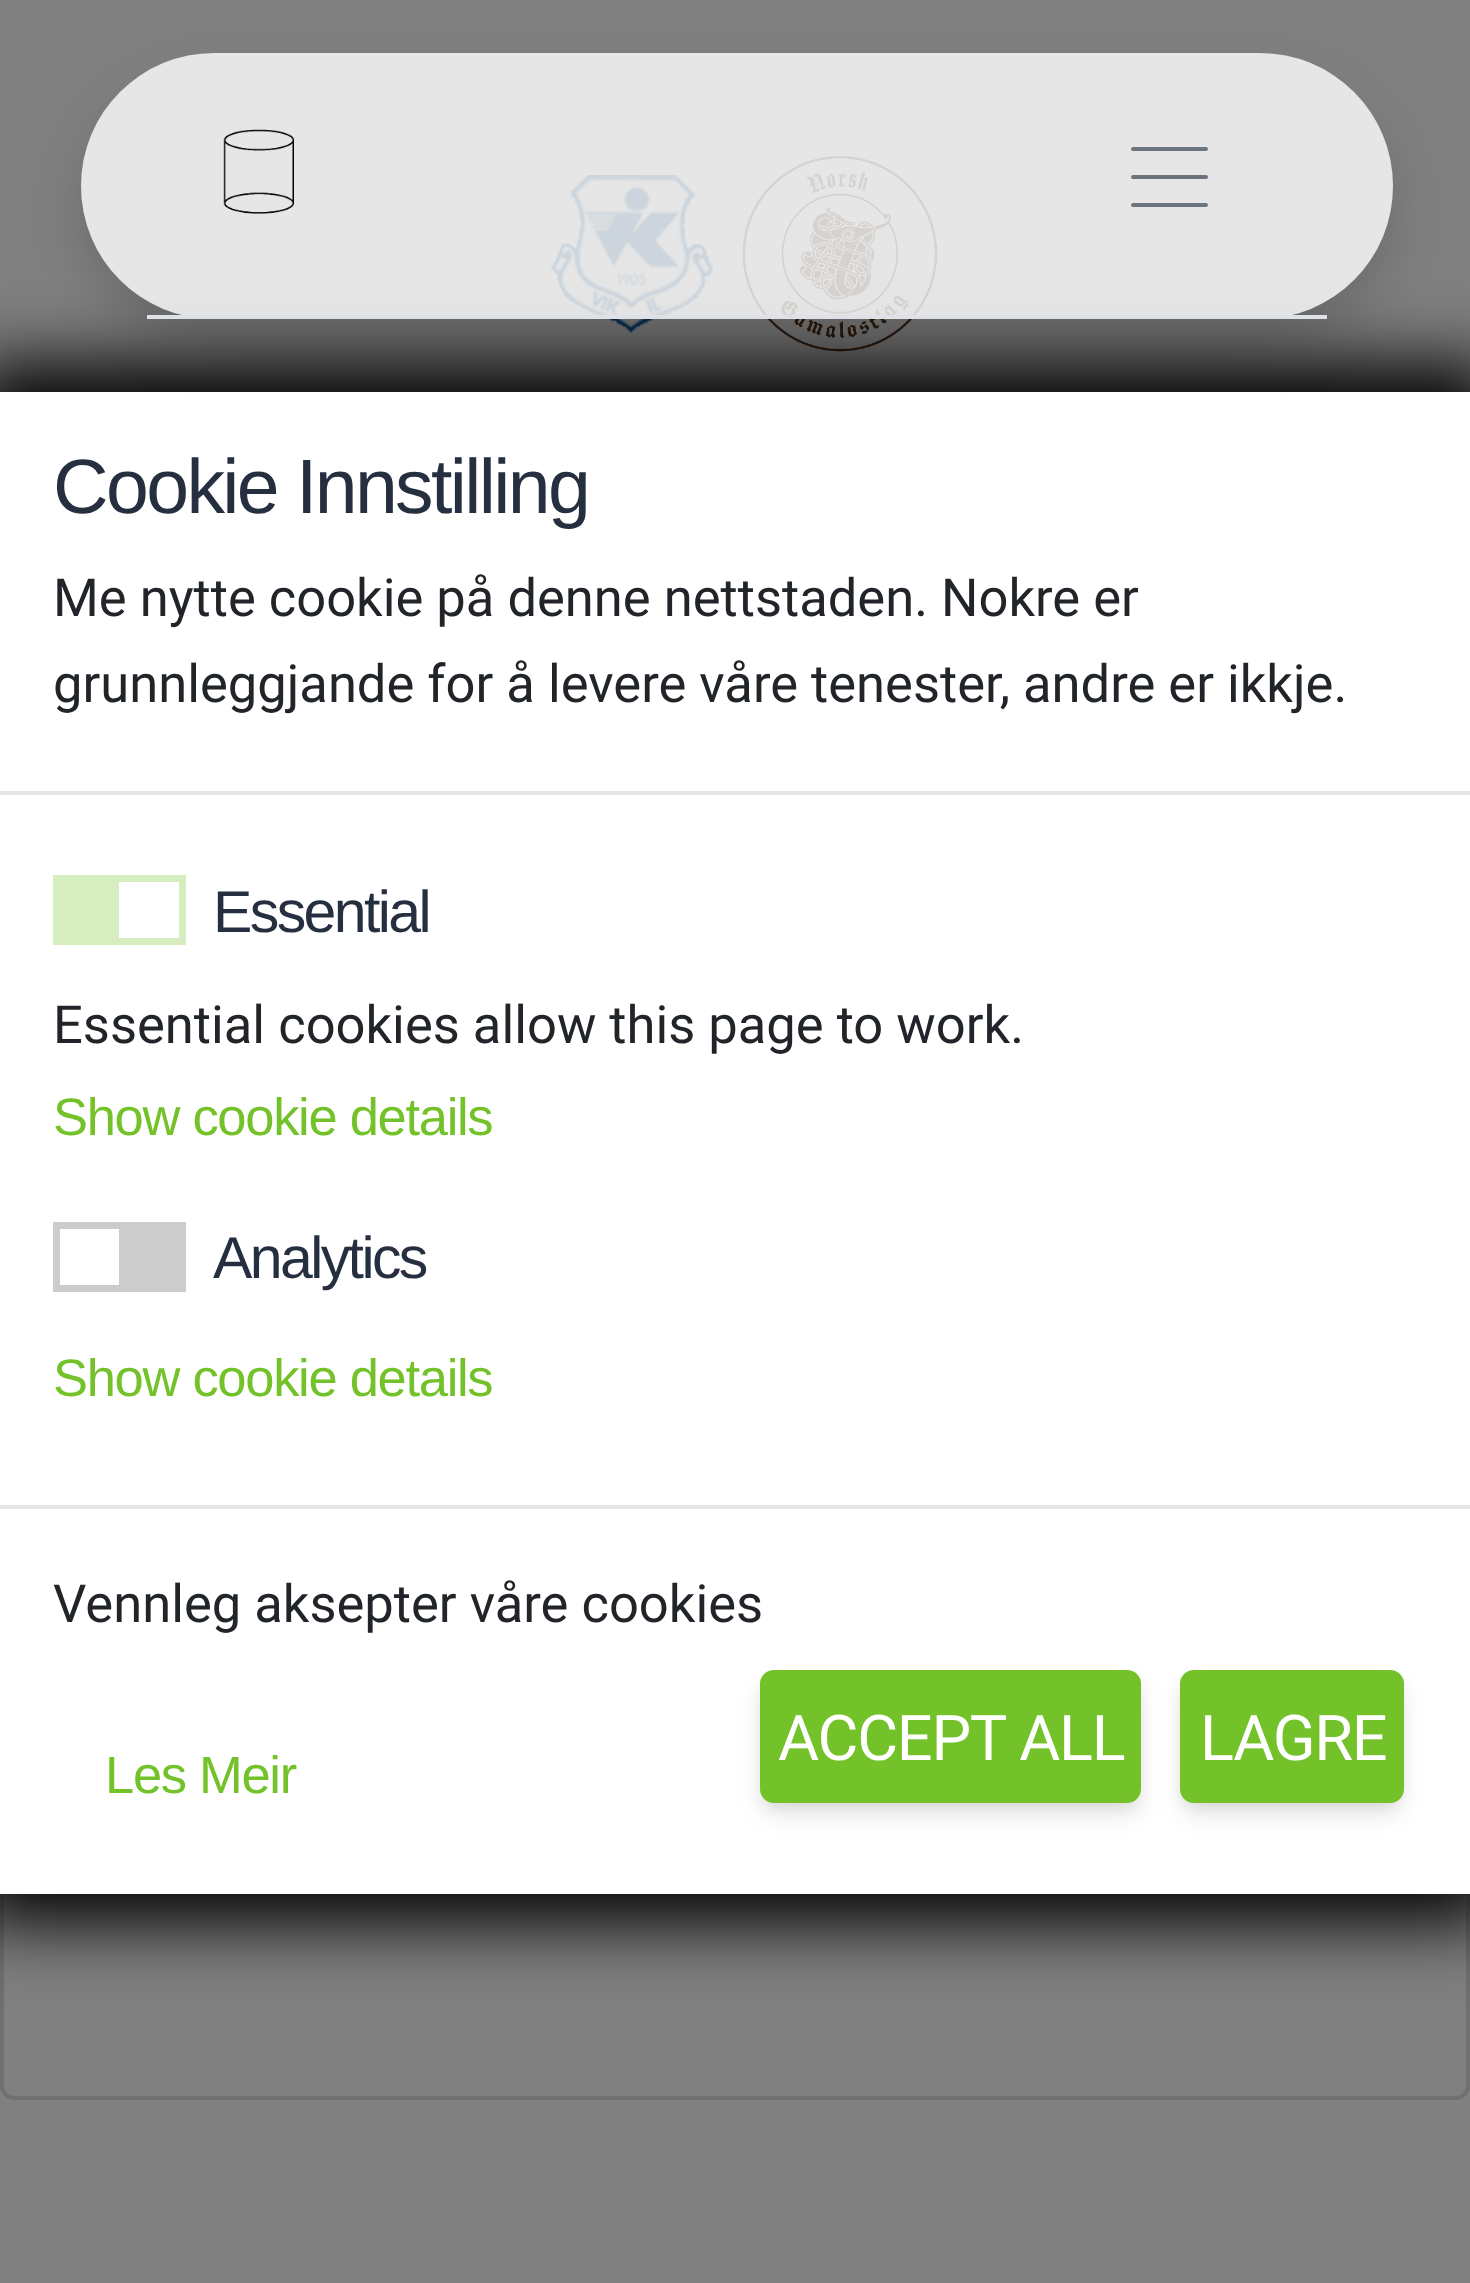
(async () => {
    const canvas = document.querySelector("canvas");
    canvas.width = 1470;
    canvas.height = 2283;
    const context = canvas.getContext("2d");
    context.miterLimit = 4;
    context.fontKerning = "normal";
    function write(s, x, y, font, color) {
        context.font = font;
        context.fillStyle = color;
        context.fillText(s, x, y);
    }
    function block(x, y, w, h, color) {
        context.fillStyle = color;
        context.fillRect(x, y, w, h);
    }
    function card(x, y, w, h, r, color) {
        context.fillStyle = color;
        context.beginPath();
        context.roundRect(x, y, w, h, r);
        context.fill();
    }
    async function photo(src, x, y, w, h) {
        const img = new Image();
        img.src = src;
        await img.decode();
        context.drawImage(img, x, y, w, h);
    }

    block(0, 0, 1470, 2283, "rgb(128, 128, 128)");
    await photo("media/2.png", 551, 175, 162, 158);
    await photo("media/3.png", 742, 156, 196, 196);
    context.beginPath();
    context.roundRect(2, 737, 1466, 1361, 12);
    context.strokeStyle = "rgb(112, 112, 112)";
    context.lineWidth = 4;
    context.stroke();
    context.fillStyle = "rgb(0, 0, 0)";
    context.filter = "blur(35px)";
    context.beginPath();
    context.rect(-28, 364, 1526, 1558);
    context.fill();
    context.filter = "none";
    block(0, 392, 1470, 1502, "rgb(255, 255, 255)");
    context.save();
    context.beginPath();
    context.moveTo(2, 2);
    context.lineTo(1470, 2);
    context.lineTo(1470, 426);
    context.lineTo(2, 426);
    context.closePath();
    context.moveTo(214, 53);
    context.lineTo(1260, 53);
    context.bezierCurveTo(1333.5, 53, 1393, 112.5, 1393, 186);
    context.bezierCurveTo(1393, 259.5, 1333.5, 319, 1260, 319);
    context.lineTo(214, 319);
    context.bezierCurveTo(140.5, 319, 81, 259.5, 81, 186);
    context.bezierCurveTo(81, 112.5, 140.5, 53, 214, 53);
    context.closePath();
    context.clip("evenodd");
    context.fillStyle = "rgba(0, 0, 0, 0.15)";
    context.filter = "blur(26px)";
    context.beginPath();
    context.roundRect(81, 81, 1312, 266, 133);
    context.fill();
    context.filter = "none";
    context.restore();
    card(81, 53, 1312, 266, 133, "rgba(255, 255, 255, 0.8)");
    block(147, 315, 1180, 4, "rgb(222, 226, 230)");
    await photo("media/1.png", 223, 129, 71, 85);
    card(1131, 147, 77, 4, 2, "rgb(108, 117, 125)");
    card(1131, 175, 77, 4, 2, "rgb(108, 117, 125)");
    card(1131, 203, 77, 4, 2, "rgb(108, 117, 125)");
    block(0, 791, 1470, 4, "rgb(229, 229, 229)");
    context.letterSpacing = "-2.6px";
    write("Cookie Innstilling", 53, 513, "77px Liberation Sans", "rgb(37, 47, 64)");
    context.letterSpacing = "0px";
    write("Me nytte cookie på denne nettstaden. Nokre er", 53, 616, "52.5px Roboto", "rgb(33, 37, 41)");
    write("grunnleggjande for å levere våre tenester, andre er ikkje.", 53, 702, "52.5px Roboto", "rgb(33, 37, 41)");
    block(53, 875, 133, 70, "rgb(213, 237, 191)");
    block(119, 882, 60, 56, "rgb(255, 255, 255)");
    context.letterSpacing = "-2.6px";
    write("Essential", 213, 932, "59px Liberation Sans", "rgb(37, 47, 64)");
    context.letterSpacing = "0px";
    write("Essential cookies allow this page to work.", 53, 1043, "52.5px Roboto", "rgb(33, 37, 41)");
    context.letterSpacing = "-1.3px";
    write("Show cookie details", 53, 1135, "52.5px Liberation Sans", "rgb(115, 194, 41)");
    block(53, 1222, 133, 70, "rgb(204, 204, 204)");
    block(60, 1229, 59, 56, "rgb(255, 255, 255)");
    context.letterSpacing = "-2.6px";
    write("Analytics", 213, 1278, "59px Liberation Sans", "rgb(37, 47, 64)");
    context.letterSpacing = "-1.3px";
    write("Show cookie details", 53, 1396, "52.5px Liberation Sans", "rgb(115, 194, 41)");
    block(0, 1505, 1470, 4, "rgb(229, 229, 229)");
    context.letterSpacing = "0px";
    write("Vennleg aksepter våre cookies", 53, 1622, "52.5px Roboto", "rgb(33, 37, 41)");
    context.fillStyle = "rgba(0, 0, 0, 0.07)";
    context.filter = "blur(7px)";
    context.beginPath();
    context.roundRect(763, 1680, 375, 126, 11);
    context.fill();
    context.filter = "none";
    context.fillStyle = "rgba(0, 0, 0, 0.11)";
    context.filter = "blur(12px)";
    context.beginPath();
    context.roundRect(763, 1687, 375, 126, 11);
    context.fill();
    context.filter = "none";
    card(760, 1670, 381, 133, 14, "rgb(115, 194, 41)");
    context.letterSpacing = "-1.3px";
    write("ACCEPT ALL", 778, 1760, "63px Roboto", "rgb(255, 255, 255)");
    context.fillStyle = "rgba(0, 0, 0, 0.07)";
    context.filter = "blur(7px)";
    context.beginPath();
    context.roundRect(1183, 1680, 217, 126, 11);
    context.fill();
    context.filter = "none";
    context.fillStyle = "rgba(0, 0, 0, 0.11)";
    context.filter = "blur(12px)";
    context.beginPath();
    context.roundRect(1183, 1687, 217, 126, 11);
    context.fill();
    context.filter = "none";
    card(1180, 1670, 224, 133, 14, "rgb(115, 194, 41)");
    write("LAGRE", 1200, 1760, "63px Roboto", "rgb(255, 255, 255)");
    write("Les Meir", 105, 1793, "52.5px Liberation Sans", "rgb(115, 194, 41)");
})();
